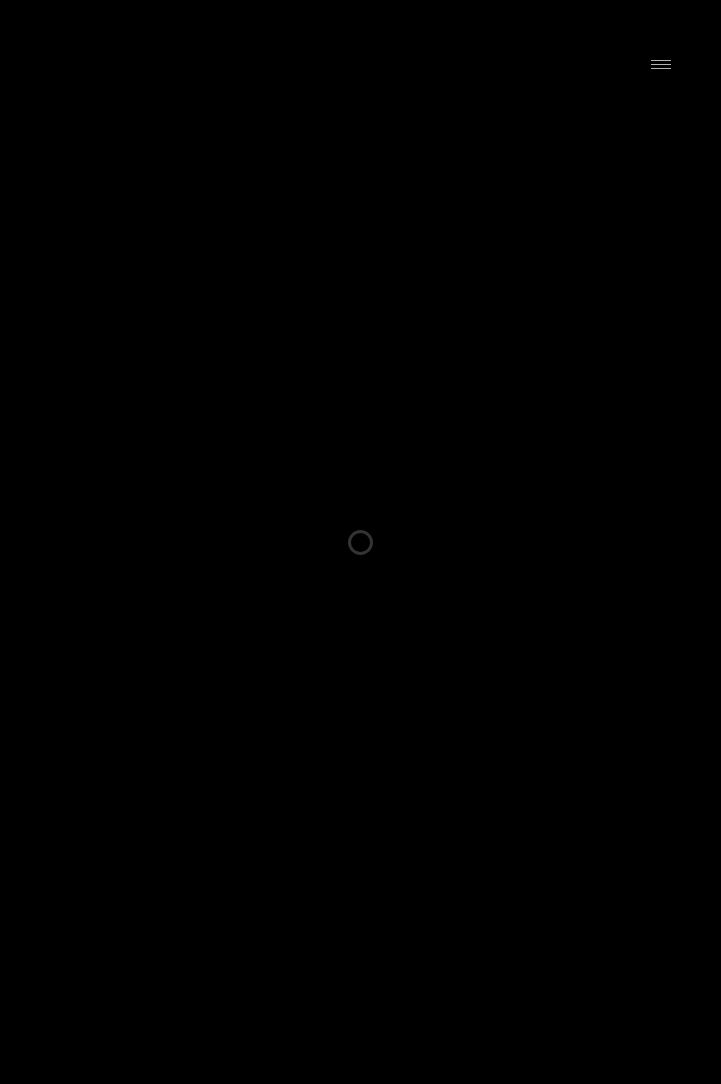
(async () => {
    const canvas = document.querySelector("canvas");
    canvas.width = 721;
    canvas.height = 1084;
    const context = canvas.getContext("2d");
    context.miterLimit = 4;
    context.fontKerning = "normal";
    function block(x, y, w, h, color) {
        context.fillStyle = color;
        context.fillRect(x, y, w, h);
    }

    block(0, 0, 721, 1084, "rgb(0, 0, 0)");
    block(651, 60, 20, 1, "rgb(179, 179, 179)");
    block(651, 64, 20, 1, "rgb(179, 179, 179)");
    block(651, 68, 20, 1, "rgb(179, 179, 179)");
    context.beginPath();
    context.arc(360.5, 542.5, 11, 0, Math.PI * 2);
    context.strokeStyle = "rgb(51, 51, 51)";
    context.lineWidth = 3;
    context.stroke();
})();
